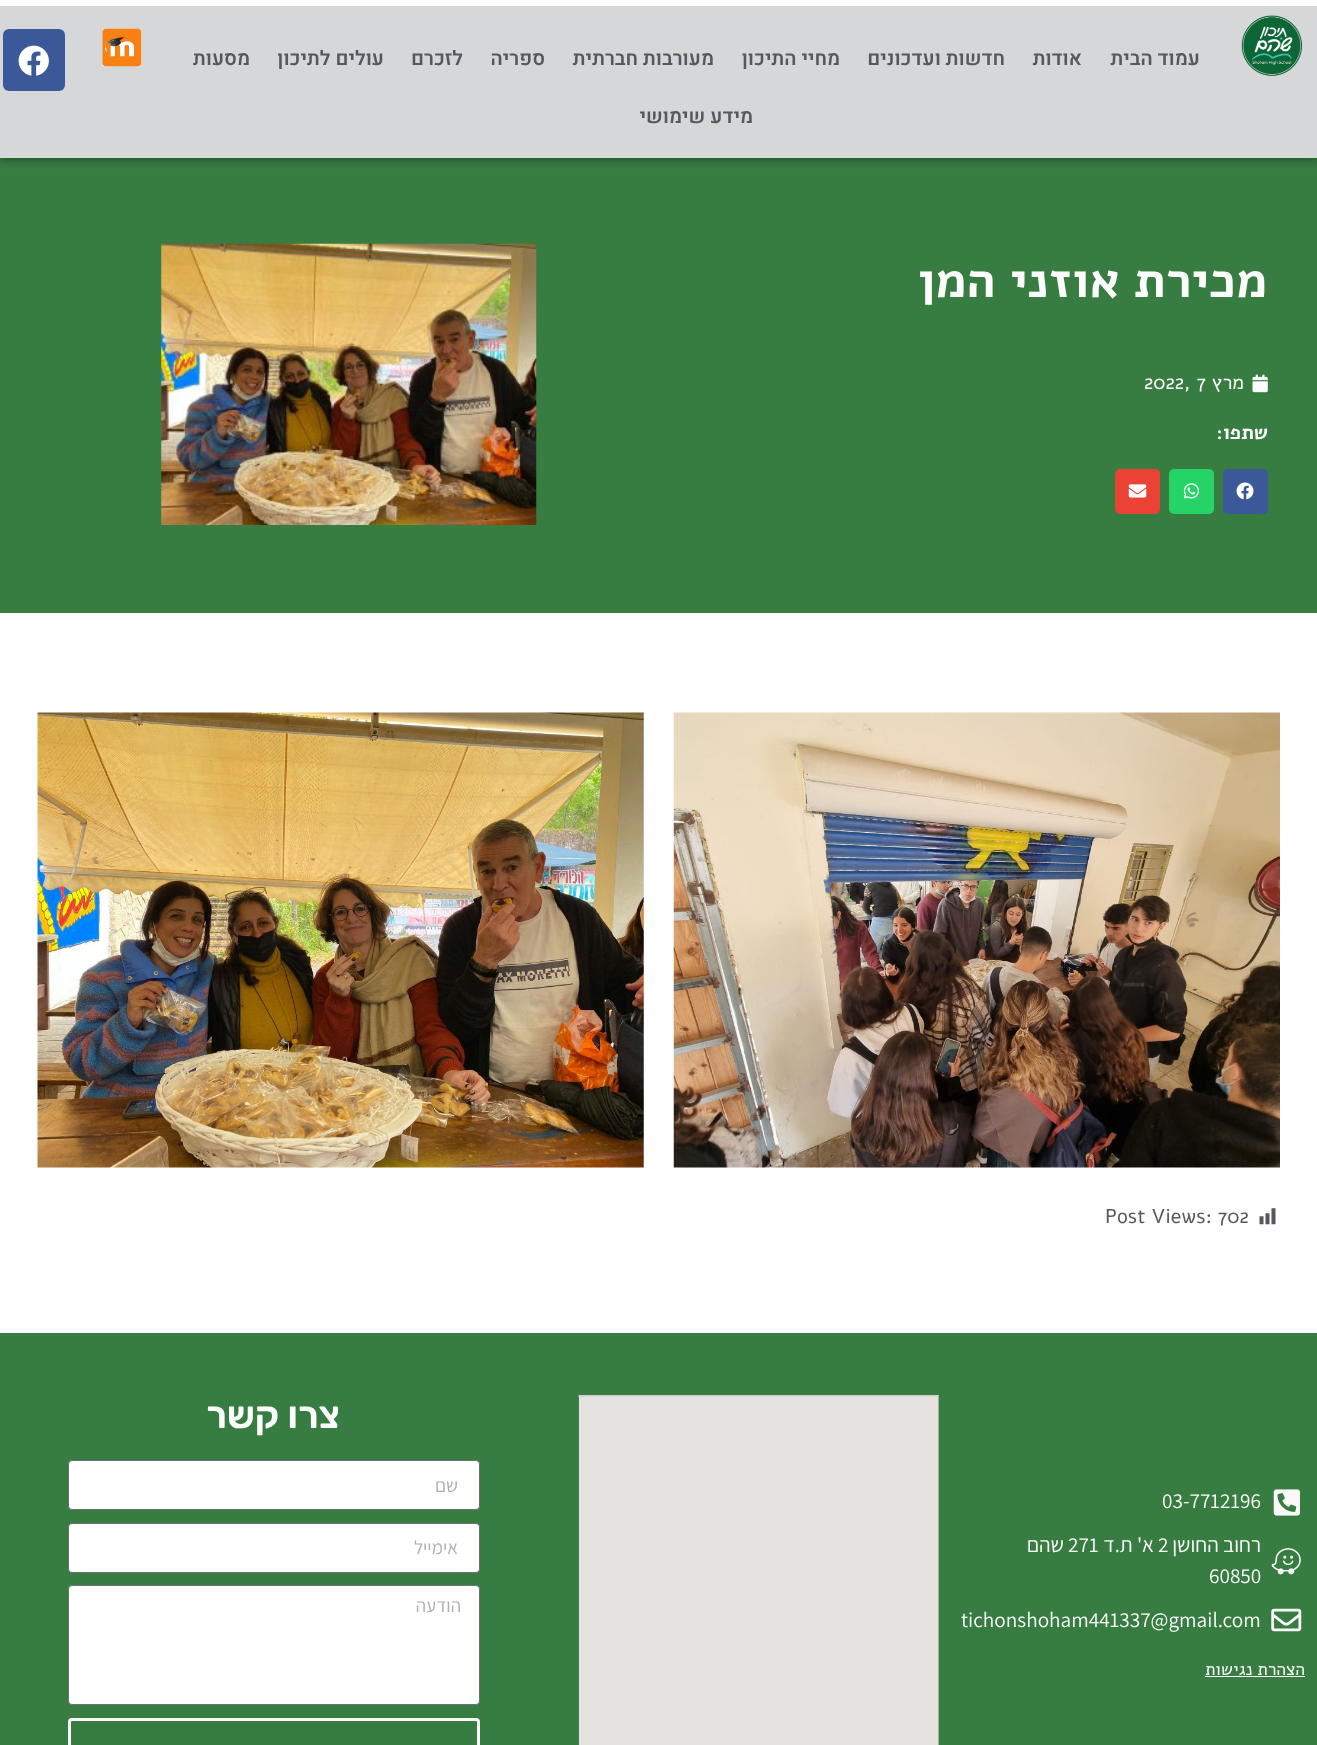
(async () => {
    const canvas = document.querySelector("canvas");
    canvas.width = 1317;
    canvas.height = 1745;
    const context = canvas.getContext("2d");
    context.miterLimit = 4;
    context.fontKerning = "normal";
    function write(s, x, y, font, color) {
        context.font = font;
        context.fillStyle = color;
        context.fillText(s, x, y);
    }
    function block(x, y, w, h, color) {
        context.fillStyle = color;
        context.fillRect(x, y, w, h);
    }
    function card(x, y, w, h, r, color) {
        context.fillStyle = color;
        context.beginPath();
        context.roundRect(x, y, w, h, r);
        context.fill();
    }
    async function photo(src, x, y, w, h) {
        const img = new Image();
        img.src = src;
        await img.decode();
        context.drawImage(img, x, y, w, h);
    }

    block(0, 0, 1317, 1745, "rgb(255, 255, 255)");
    block(0, 6, 1317, 150, "rgb(84, 89, 95)");
    block(0, 156, 1317, 457, "rgb(55, 125, 65)");
    context.save();
    context.beginPath();
    context.moveTo(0, 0);
    context.lineTo(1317, 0);
    context.lineTo(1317, 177);
    context.lineTo(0, 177);
    context.closePath();
    context.moveTo(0, 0);
    context.lineTo(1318, 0);
    context.lineTo(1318, 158);
    context.lineTo(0, 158);
    context.closePath();
    context.clip("evenodd");
    context.fillStyle = "rgba(0, 0, 0, 0.5)";
    context.filter = "blur(6px)";
    context.beginPath();
    context.rect(0, 0, 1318, 158);
    context.fill();
    context.filter = "none";
    context.restore();
    block(0, 6, 1317, 152, "rgba(255, 255, 255, 0.76)");
    await photo("media/1.png", 1241, 15, 62, 61);
    context.direction = "rtl";
    write("עמוד הבית", 1200, 65, "600 20px Heebo", "rgb(84, 89, 95)");
    write("אודות", 1082, 65, "600 20px Heebo", "rgb(84, 89, 95)");
    write("חדשות ועדכונים", 1005, 65, "600 20px Heebo", "rgb(84, 89, 95)");
    write("מחיי התיכון", 840, 65, "600 20px Heebo", "rgb(84, 89, 95)");
    write("מעורבות חברתית", 714, 65, "600 20px Heebo", "rgb(84, 89, 95)");
    write("ספריה", 545, 65, "600 20px Heebo", "rgb(84, 89, 95)");
    write("לזכרם", 463, 65, "600 20px Heebo", "rgb(84, 89, 95)");
    write("עולים לתיכון", 384, 65, "600 20px Heebo", "rgb(84, 89, 95)");
    write("מסעות", 250, 65, "600 20px Heebo", "rgb(84, 89, 95)");
    write("מידע שימושי", 753, 123, "600 20px Heebo", "rgb(84, 89, 95)");
    await photo("media/2.png", 102, 28, 40, 39);
    card(3, 29, 62, 62, 6, "rgb(59, 89, 152)");
    await photo("media/3.png", 18, 45, 31, 31);
    write("מכירת אוזני המן", 1267, 297, "bold 50px Alef", "rgb(252, 252, 252)");
    await photo("media/4.png", 1252, 374, 16, 19);
    write("מרץ", 1244, 389, "20px Alef", "rgb(252, 252, 252)");
    context.direction = "ltr";
    write("2022, 7", 1144, 389, "20px Alef", "rgb(252, 252, 252)");
    context.direction = "rtl";
    write("שתפו:", 1268, 439, "bold 20px Alef", "rgb(252, 252, 252)");
    card(1223, 469, 45, 45, 5, "rgb(59, 89, 152)");
    await photo("media/5.png", 1236, 482, 18, 18);
    card(1169, 469, 45, 45, 5, "rgb(37, 211, 102)");
    await photo("media/6.png", 1183, 483, 17, 16);
    card(1115, 469, 45, 45, 5, "rgb(234, 67, 53)");
    await photo("media/7.png", 1128, 484, 19, 14);
    await photo("media/8.png", 161, 243, 376, 282);
    await photo("media/9.png", 673, 712, 607, 456);
    await photo("media/10.png", 37, 712, 607, 456);
    await photo("media/11.png", 1259, 1208, 17, 17);
    context.direction = "ltr";
    write("Post Views: 702", 1105, 1223, "20px Alef", "rgb(84, 89, 95)");
    block(0, 1333, 1317, 412, "rgb(55, 125, 65)");
    await photo("media/12.png", 1273, 1489, 27, 27);
    write("03-7712196", 1162, 1508, "21.25px Assistant", "rgb(252, 252, 252)");
    await photo("media/13.png", 1271, 1548, 30, 27);
    context.direction = "rtl";
    write("רחוב החושן", 1261, 1552, "21.25px Assistant", "rgb(252, 252, 252)");
    context.direction = "ltr";
    write("2", 1158, 1552, "21.25px Assistant", "rgb(252, 252, 252)");
    context.direction = "rtl";
    write("א' ת.ד", 1154, 1552, "21.25px Assistant", "rgb(252, 252, 252)");
    context.direction = "ltr";
    write("271", 1068, 1552, "21.25px Assistant", "rgb(252, 252, 252)");
    context.direction = "rtl";
    write("שהם", 1064, 1552, "21.25px Assistant", "rgb(252, 252, 252)");
    context.direction = "ltr";
    write("60850", 1209, 1583, "21.25px Assistant", "rgb(252, 252, 252)");
    await photo("media/14.png", 1271, 1608, 31, 24);
    write("tichonshoham441337@gmail.com", 961, 1627, "21.25px Assistant", "rgb(252, 252, 252)");
    context.direction = "rtl";
    write("הצהרת נגישות", 1305, 1675, "17.5px Alef", "rgb(252, 252, 252)");
    block(1205, 1676, 100, 1, "rgb(252, 252, 252)");
    await photo("media/15.png", 578, 1395, 361, 350);
    write("צרו קשר", 340, 1428, "600 37.5px Rubik", "rgb(252, 252, 252)");
    context.fillStyle = "rgb(255, 255, 255)";
    context.beginPath();
    context.roundRect(68.5, 1460.5, 411, 49, 3.5);
    context.fill();
    context.strokeStyle = "rgb(105, 114, 125)";
    context.stroke();
    write("שם", 458, 1492, "19px Assistant", "rgb(175, 175, 175)");
    context.fillStyle = "rgb(255, 255, 255)";
    context.beginPath();
    context.roundRect(68.5, 1523.5, 411, 49, 3.5);
    context.fill();
    context.stroke();
    write("אימייל", 458, 1554, "19px Assistant", "rgb(175, 175, 175)");
    context.fillStyle = "rgb(255, 255, 255)";
    context.beginPath();
    context.roundRect(68.5, 1585.5, 411, 119, 3.5);
    context.fill();
    context.stroke();
    write("הודעה", 461, 1612, "19px Assistant", "rgb(175, 175, 175)");
    context.beginPath();
    context.roundRect(69.5, 1719.5, 409, 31, 2.5);
    context.strokeStyle = "rgb(252, 252, 252)";
    context.lineWidth = 3;
    context.stroke();
})();
